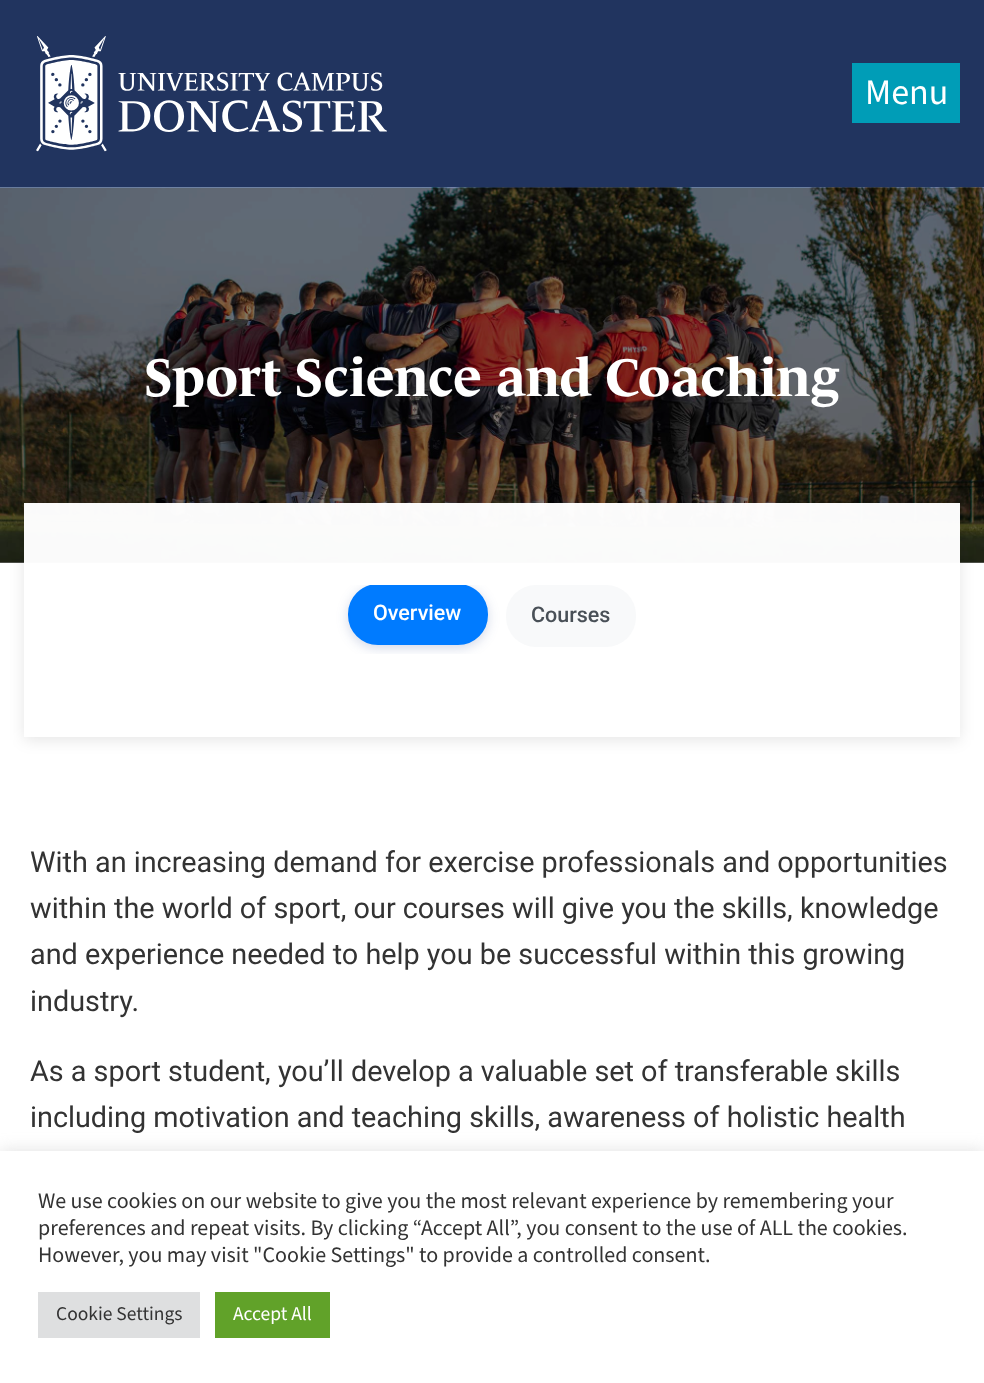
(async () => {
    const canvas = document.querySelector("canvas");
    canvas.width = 984;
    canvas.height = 1383;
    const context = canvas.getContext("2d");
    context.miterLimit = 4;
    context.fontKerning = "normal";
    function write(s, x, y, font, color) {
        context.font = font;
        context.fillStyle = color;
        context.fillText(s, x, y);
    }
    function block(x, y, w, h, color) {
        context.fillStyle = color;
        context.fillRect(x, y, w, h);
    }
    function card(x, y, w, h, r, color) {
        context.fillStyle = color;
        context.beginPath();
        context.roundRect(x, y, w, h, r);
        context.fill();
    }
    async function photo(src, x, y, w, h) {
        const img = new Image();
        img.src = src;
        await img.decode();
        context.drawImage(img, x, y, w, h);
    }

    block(0, 0, 984, 1383, "rgb(255, 255, 255)");
    block(0, 0, 984, 188, "rgb(33, 52, 95)");
    await photo("media/1.png", 36, 36, 351, 116);
    block(852, 63, 108, 60, "rgb(0, 157, 183)");
    write("Menu", 865, 104, "36px Source Sans Pro", "rgb(255, 255, 255)");
    block(0, 562, 984, 1, "rgb(124, 125, 125)");
    await photo("media/2.png", 0, 187, 984, 376);
    write("Sport Science and Coaching", 144, 396, "bold 54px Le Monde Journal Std", "rgb(255, 255, 255)");
    context.save();
    context.beginPath();
    context.moveTo(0, 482);
    context.lineTo(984, 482);
    context.lineTo(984, 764);
    context.lineTo(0, 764);
    context.closePath();
    context.moveTo(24, 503);
    context.lineTo(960, 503);
    context.lineTo(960, 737);
    context.lineTo(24, 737);
    context.closePath();
    context.clip("evenodd");
    context.fillStyle = "rgba(0, 0, 0, 0.1)";
    context.filter = "blur(7.5px)";
    context.beginPath();
    context.rect(24, 506, 936, 234);
    context.fill();
    context.filter = "none";
    context.restore();
    block(24, 503, 936, 234, "rgba(255, 255, 255, 0.98)");
    card(506, 585, 130, 62, 30, "rgb(248, 249, 250)");
    context.save();
    context.beginPath();
    context.rect(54, 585, 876, 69);
    context.clip();
    context.fillStyle = "rgba(30, 58, 138, 0.2)";
    context.filter = "blur(6px)";
    context.beginPath();
    context.roundRect(348, 587, 140, 61, 30);
    context.fill();
    context.filter = "none";
    context.restore();
    context.save();
    context.beginPath();
    context.rect(54, 585, 876, 69);
    context.clip();
    context.fillStyle = "rgb(0, 123, 255)";
    context.beginPath();
    context.roundRect(349, 585, 138, 59, 29);
    context.fill();
    context.strokeStyle = "rgb(0, 123, 255)";
    context.lineWidth = 2;
    context.stroke();
    context.restore();
    write("Overview", 373, 620, "500 21.5px Roboto", "rgb(255, 255, 255)");
    write("Courses", 531, 622, "500 21.5px Roboto", "rgb(73, 80, 87)");
    write("With an increasing demand for exercise professionals and opportunities", 30, 872, "28.8px Roboto", "rgb(51, 51, 51)");
    write("within the world of sport, our courses will give you the skills, knowledge", 30, 918, "28.8px Roboto", "rgb(51, 51, 51)");
    write("and experience needed to help you be successful within this growing", 30, 964, "28.8px Roboto", "rgb(51, 51, 51)");
    write("industry.", 30, 1011, "28.8px Roboto", "rgb(51, 51, 51)");
    write("As a sport student, you’ll develop a valuable set of transferable skills", 30, 1081, "28.8px Roboto", "rgb(51, 51, 51)");
    write("including motivation and teaching skills, awareness of holistic health", 30, 1127, "28.8px Roboto", "rgb(51, 51, 51)");
    context.fillStyle = "rgba(172, 171, 171, 0.3)";
    context.filter = "blur(7.5px)";
    context.beginPath();
    context.rect(0, 1149, 984, 233);
    context.fill();
    context.filter = "none";
    block(0, 1151, 984, 232, "rgb(255, 255, 255)");
    write("We use cookies on our website to give you the most relevant experience by remembering your", 38, 1208, "22px Source Sans Pro", "rgb(51, 51, 51)");
    write("preferences and repeat visits. By clicking “Accept All”, you consent to the use of ALL the cookies.", 38, 1235, "22px Source Sans Pro", "rgb(51, 51, 51)");
    write("However, you may visit \"Cookie Settings\" to provide a controlled consent.", 38, 1262, "22px Source Sans Pro", "rgb(51, 51, 51)");
    block(38, 1292, 162, 46, "rgb(222, 223, 224)");
    write("Cookie Settings", 56, 1320, "19.5px Source Sans Pro", "rgb(51, 51, 51)");
    block(215, 1292, 115, 46, "rgb(97, 162, 41)");
    write("Accept All", 233, 1320, "19.5px Source Sans Pro", "rgb(255, 255, 255)");
})();
